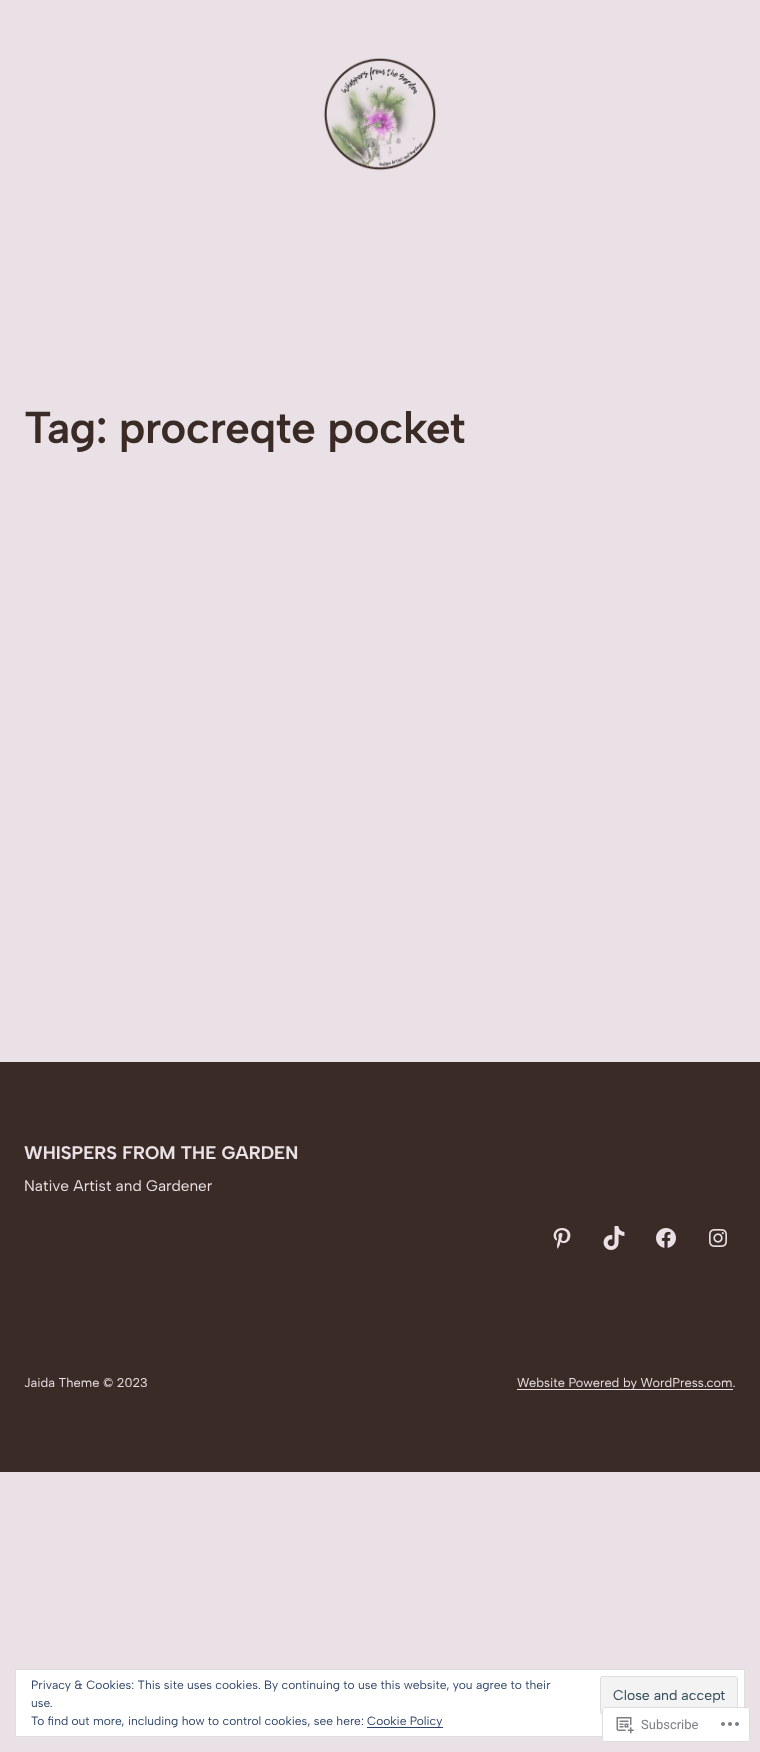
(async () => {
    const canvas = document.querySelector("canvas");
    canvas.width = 760;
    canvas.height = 1752;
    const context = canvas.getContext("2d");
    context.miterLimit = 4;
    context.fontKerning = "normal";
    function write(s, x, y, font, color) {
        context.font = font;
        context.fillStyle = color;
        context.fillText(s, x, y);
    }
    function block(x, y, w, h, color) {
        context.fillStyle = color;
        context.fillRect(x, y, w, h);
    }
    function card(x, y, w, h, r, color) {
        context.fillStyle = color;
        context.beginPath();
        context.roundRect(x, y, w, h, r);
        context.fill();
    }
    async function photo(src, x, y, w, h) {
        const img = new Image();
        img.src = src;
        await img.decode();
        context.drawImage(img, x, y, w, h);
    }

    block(0, 0, 760, 1752, "rgb(233, 225, 229)");
    await photo("media/1.png", 323, 58, 113, 113);
    context.letterSpacing = "-0.6px";
    write("Tag: procreqte pocket", 24, 443, "600 44.5px Albert Sans", "rgb(59, 43, 39)");
    block(0, 1062, 760, 410, "rgb(59, 43, 39)");
    context.letterSpacing = "0px";
    write("WHISPERS FROM THE GARDEN", 24, 1159, "bold 18.25px Albert Sans", "rgb(233, 225, 229)");
    write("Native Artist and Gardener", 24, 1191, "15.4px Albert Sans", "rgb(233, 225, 229)");
    await photo("media/2.png", 553, 1228, 18, 21);
    await photo("media/3.png", 603, 1226, 22, 24);
    await photo("media/4.png", 656, 1228, 20, 20);
    await photo("media/5.png", 709, 1229, 18, 18);
    write("Jaida Theme © 2023", 24, 1387, "12.75px Albert Sans", "rgb(233, 225, 229)");
    block(517, 1389, 216, 1, "rgb(233, 225, 229)");
    write("Website Powered by WordPress.com.", 517, 1387, "12.75px Albert Sans", "rgb(233, 225, 229)");
    context.fillStyle = "rgb(255, 255, 255)";
    context.beginPath();
    context.rect(15.5, 1669.5, 729, 67);
    context.fill();
    context.strokeStyle = "rgb(222, 222, 222)";
    context.stroke();
    write("Privacy & Cookies: This site uses cookies. By continuing to use this website, you agree to their", 31, 1689, "12px Albert Sans", "rgb(46, 68, 103)");
    context.fillStyle = "rgb(243, 243, 243)";
    context.beginPath();
    context.roundRect(600.5, 1676.5, 137, 38, 2.5);
    context.fill();
    context.stroke();
    write("Close and accept", 613, 1700, "14px Albert Sans", "rgb(46, 68, 83)");
    write("use.", 31, 1707, "12px Albert Sans", "rgb(46, 68, 103)");
    write("To find out more, including how to control cookies, see here:", 31, 1725, "12px Albert Sans", "rgb(46, 68, 103)");
    block(367, 1727, 76, 1, "rgb(46, 68, 103)");
    write("Cookie Policy", 367, 1725, "12px Albert Sans", "rgb(46, 68, 103)");
    card(602, 1707, 148, 35, 3, "rgba(255, 255, 255, 0.98)");
    context.beginPath();
    context.roundRect(602.5, 1707.5, 147, 34, 2.5);
    context.strokeStyle = "rgba(220, 220, 222, 0.98)";
    context.stroke();
    await photo("media/6.png", 616, 1717, 18, 17);
    write("Subscribe", 641, 1729, "13px Roboto", "rgb(123, 127, 133)");
    await photo("media/7.png", 721, 1722, 18, 4);
})();
